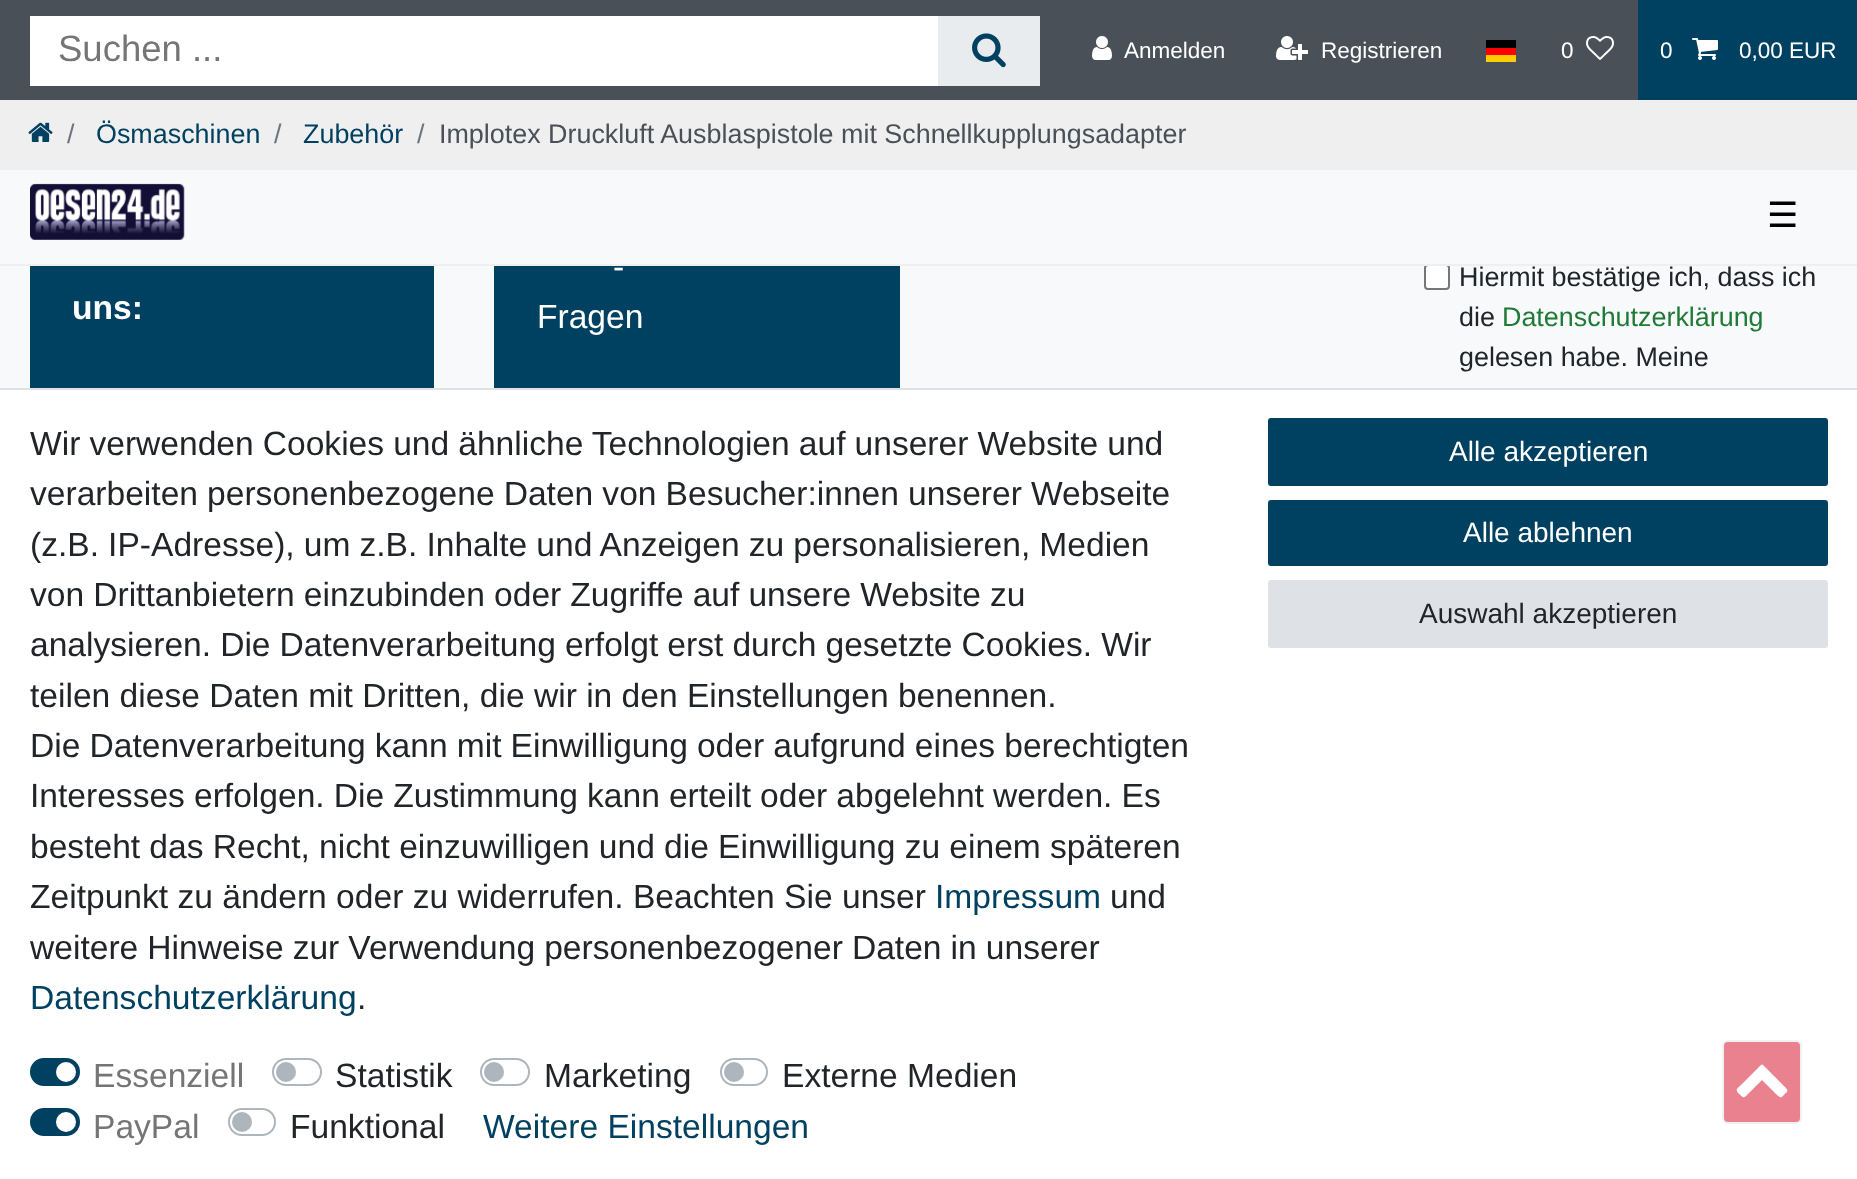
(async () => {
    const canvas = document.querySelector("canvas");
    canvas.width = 1857;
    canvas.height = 1179;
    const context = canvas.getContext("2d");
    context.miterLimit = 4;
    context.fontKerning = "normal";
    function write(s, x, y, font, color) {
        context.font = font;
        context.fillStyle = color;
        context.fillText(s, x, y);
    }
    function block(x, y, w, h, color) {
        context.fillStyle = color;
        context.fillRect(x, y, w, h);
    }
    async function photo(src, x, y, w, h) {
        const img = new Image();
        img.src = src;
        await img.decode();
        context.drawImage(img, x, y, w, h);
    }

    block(0, 0, 1857, 1179, "rgb(248, 249, 250)");
    block(0, 0, 1638, 100, "rgb(73, 80, 87)");
    block(30, 16, 908, 70, "rgb(255, 255, 255)");
    write("Suchen ...", 58, 61, "36.5px Liberation Sans", "rgb(117, 117, 117)");
    block(938, 16, 102, 70, "rgb(233, 236, 239)");
    await photo("media/1.png", 972, 33, 34, 35);
    await photo("media/2.png", 1092, 36, 20, 24);
    write("Anmelden", 1124, 58, "22.5px Liberation Sans", "rgb(255, 255, 255)");
    await photo("media/3.png", 1276, 36, 32, 24);
    write("Registrieren", 1321, 58, "22.5px Liberation Sans", "rgb(255, 255, 255)");
    block(1486, 55, 30, 7, "rgb(255, 204, 0)");
    block(1486, 40, 30, 8, "rgb(0, 0, 0)");
    block(1486, 48, 30, 7, "rgb(255, 0, 0)");
    write("0", 1561, 58, "22.5px Liberation Sans", "rgb(255, 255, 255)");
    await photo("media/4.png", 1586, 36, 28, 24);
    block(1638, 0, 219, 100, "rgb(0, 64, 96)");
    write("0", 1660, 58, "22.5px Liberation Sans", "rgb(255, 255, 255)");
    await photo("media/5.png", 1692, 38, 26, 22);
    write("0,00 EUR", 1739, 58, "22.5px Liberation Sans", "rgb(255, 255, 255)");
    block(0, 100, 1857, 70, "rgb(239, 239, 239)");
    await photo("media/6.png", 28, 122, 25, 20);
    write("/", 67, 143, "26.9px Liberation Sans", "rgb(108, 117, 125)");
    write("Ösmaschinen", 96, 143, "26.9px Liberation Sans", "rgb(0, 64, 96)");
    write("/", 274, 143, "26.9px Liberation Sans", "rgb(108, 117, 125)");
    write("Zubehör", 303, 143, "26.9px Liberation Sans", "rgb(0, 64, 96)");
    write("/", 417, 143, "26.9px Liberation Sans", "rgb(108, 117, 125)");
    write("Implotex Druckluft Ausblaspistole mit Schnellkupplungsadapter", 439, 143, "26.9px Liberation Sans", "rgb(73, 80, 87)");
    context.fillStyle = "rgb(255, 255, 255)";
    context.beginPath();
    context.roundRect(1425, 265, 24, 24, 3);
    context.fill();
    context.strokeStyle = "rgb(118, 118, 118)";
    context.lineWidth = 2;
    context.stroke();
    block(0, 264, 1857, 2, "rgb(239, 239, 239)");
    await photo("media/7.png", 30, 183, 155, 57);
    write("☰", 1767, 227, "35px DejaVu Sans", "rgb(0, 0, 0)");
    block(30, 266, 404, 122, "rgb(0, 64, 96)");
    write("uns:", 72, 319, "bold 33.6px Liberation Sans", "rgb(255, 255, 255)");
    block(494, 266, 406, 122, "rgb(0, 64, 96)");
    write("-", 613, 278, "33.6px Liberation Sans", "rgb(255, 255, 255)");
    write("Fragen", 537, 328, "33.6px Liberation Sans", "rgb(255, 255, 255)");
    write("Hiermit bestätige ich, dass ich", 1459, 286, "26.9px Liberation Sans", "rgb(33, 37, 41)");
    write("die", 1459, 326, "26.9px Liberation Sans", "rgb(33, 37, 41)");
    write("Datenschutzerklärung", 1502, 326, "26.9px Liberation Sans", "rgb(30, 122, 54)");
    write("gelesen habe. Meine", 1459, 366, "26.9px Liberation Sans", "rgb(33, 37, 41)");
    block(0, 390, 1857, 789, "rgb(255, 255, 255)");
    block(0, 388, 1857, 2, "rgb(222, 226, 230)");
    context.wordSpacing = "-0.25px";
    write("Wir verwenden Cookies und ähnliche Technologien auf unserer Website und", 30, 455, "33.6px Liberation Sans", "rgb(33, 37, 41)");
    write("verarbeiten personenbezogene Daten von Besucher:innen unserer Webseite", 30, 505, "33.6px Liberation Sans", "rgb(33, 37, 41)");
    write("(z.B. IP-Adresse), um z.B. Inhalte und Anzeigen zu personalisieren, Medien", 30, 556, "33.6px Liberation Sans", "rgb(33, 37, 41)");
    write("von Drittanbietern einzubinden oder Zugriffe auf unsere Website zu", 30, 606, "33.6px Liberation Sans", "rgb(33, 37, 41)");
    write("analysieren. Die Datenverarbeitung erfolgt erst durch gesetzte Cookies. Wir", 30, 656, "33.6px Liberation Sans", "rgb(33, 37, 41)");
    context.wordSpacing = "0px";
    write("teilen diese Daten mit Dritten, die wir in den Einstellungen benennen.", 30, 707, "33.6px Liberation Sans", "rgb(33, 37, 41)");
    context.wordSpacing = "-0.25px";
    write("Die Datenverarbeitung kann mit Einwilligung oder aufgrund eines berechtigten", 30, 757, "33.6px Liberation Sans", "rgb(33, 37, 41)");
    write("Interesses erfolgen. Die Zustimmung kann erteilt oder abgelehnt werden. Es", 30, 807, "33.6px Liberation Sans", "rgb(33, 37, 41)");
    context.wordSpacing = "-0.1px";
    write("besteht das Recht, nicht einzuwilligen und die Einwilligung zu einem späteren", 30, 858, "33.6px Liberation Sans", "rgb(33, 37, 41)");
    context.wordSpacing = "0px";
    write("Zeitpunkt zu ändern oder zu widerrufen. Beachten Sie unser", 30, 908, "33.6px Liberation Sans", "rgb(33, 37, 41)");
    write("Impressum", 935, 908, "33.6px Liberation Sans", "rgb(0, 64, 96)");
    write("und", 1110, 908, "33.6px Liberation Sans", "rgb(33, 37, 41)");
    context.wordSpacing = "-0.25px";
    write("weitere Hinweise zur Verwendung personenbezogener Daten in unserer", 30, 959, "33.6px Liberation Sans", "rgb(33, 37, 41)");
    context.wordSpacing = "0px";
    write("Datenschutzerklärung", 30, 1009, "33.6px Liberation Sans", "rgb(0, 64, 96)");
    write(".", 357, 1009, "33.6px Liberation Sans", "rgb(33, 37, 41)");
    context.fillStyle = "rgb(0, 64, 96)";
    context.beginPath();
    context.roundRect(31, 1059, 48, 26, 13);
    context.fill();
    context.strokeStyle = "rgb(0, 64, 96)";
    context.stroke();
    context.fillStyle = "rgb(255, 255, 255)";
    context.beginPath();
    context.arc(66, 1072, 10, 0, Math.PI * 2);
    context.fill();
    write("Essenziell", 93, 1087, "33.6px Liberation Sans", "rgb(117, 117, 117)");
    context.beginPath();
    context.roundRect(273, 1059, 48, 26, 13);
    context.strokeStyle = "rgb(173, 181, 189)";
    context.stroke();
    context.fillStyle = "rgb(173, 181, 189)";
    context.beginPath();
    context.arc(286, 1072, 10, 0, Math.PI * 2);
    context.fill();
    write("Statistik", 335, 1087, "33.6px Liberation Sans", "rgb(33, 37, 41)");
    context.beginPath();
    context.roundRect(481, 1059, 48, 26, 13);
    context.stroke();
    context.fillStyle = "rgb(173, 181, 189)";
    context.beginPath();
    context.arc(494, 1072, 10, 0, Math.PI * 2);
    context.fill();
    write("Marketing", 544, 1087, "33.6px Liberation Sans", "rgb(33, 37, 41)");
    context.beginPath();
    context.roundRect(721, 1059, 46, 26, 13);
    context.stroke();
    context.fillStyle = "rgb(173, 181, 189)";
    context.beginPath();
    context.arc(734, 1072, 10, 0, Math.PI * 2);
    context.fill();
    write("Externe Medien", 782, 1087, "33.6px Liberation Sans", "rgb(33, 37, 41)");
    context.fillStyle = "rgb(0, 64, 96)";
    context.beginPath();
    context.roundRect(31, 1109, 48, 26, 13);
    context.fill();
    context.strokeStyle = "rgb(0, 64, 96)";
    context.stroke();
    context.fillStyle = "rgb(255, 255, 255)";
    context.beginPath();
    context.arc(66, 1122, 10, 0, Math.PI * 2);
    context.fill();
    write("PayPal", 93, 1138, "33.6px Liberation Sans", "rgb(117, 117, 117)");
    context.beginPath();
    context.roundRect(229, 1109, 46, 26, 13);
    context.strokeStyle = "rgb(173, 181, 189)";
    context.stroke();
    context.fillStyle = "rgb(173, 181, 189)";
    context.beginPath();
    context.arc(242, 1122, 10, 0, Math.PI * 2);
    context.fill();
    write("Funktional", 290, 1138, "33.6px Liberation Sans", "rgb(33, 37, 41)");
    write("Weitere Einstellungen", 483, 1138, "33.6px Liberation Sans", "rgb(0, 64, 96)");
    context.beginPath();
    context.roundRect(1269, 419, 558, 66, 2);
    context.fill();
    context.strokeStyle = "rgb(0, 64, 96)";
    context.stroke();
    write("Alle akzeptieren", 1449, 461, "28px Liberation Sans", "rgb(255, 255, 255)");
    context.fillStyle = "rgb(0, 64, 96)";
    context.beginPath();
    context.roundRect(1269, 501, 558, 64, 2);
    context.fill();
    context.stroke();
    write("Alle ablehnen", 1463, 542, "28px Liberation Sans", "rgb(255, 255, 255)");
    context.fillStyle = "rgb(222, 226, 230)";
    context.beginPath();
    context.roundRect(1269, 581, 558, 66, 2);
    context.fill();
    context.strokeStyle = "rgb(222, 226, 230)";
    context.stroke();
    write("Auswahl akzeptieren", 1419, 623, "28px Liberation Sans", "rgb(33, 37, 41)");
    context.fillStyle = "rgb(234, 129, 142)";
    context.beginPath();
    context.roundRect(1723, 1041, 78, 82, 5);
    context.fill();
    context.strokeStyle = "rgb(239, 241, 243)";
    context.stroke();
    context.fillStyle = "rgb(255, 255, 255)";
    context.beginPath();
    context.moveTo(1787, 1092);
    context.bezierCurveTo(1781, 1097, 1782, 1100, 1776, 1094);
    context.lineTo(1762, 1080);
    context.lineTo(1748, 1094);
    context.bezierCurveTo(1743, 1099, 1744, 1098, 1738, 1093);
    context.bezierCurveTo(1735, 1089, 1738, 1088, 1741, 1085);
    context.lineTo(1757, 1069);
    context.bezierCurveTo(1763, 1063, 1761, 1063, 1767, 1069);
    context.lineTo(1783, 1085);
    context.bezierCurveTo(1783, 1086, 1789, 1089, 1787, 1092);
    context.closePath();
    context.fill();
})();
